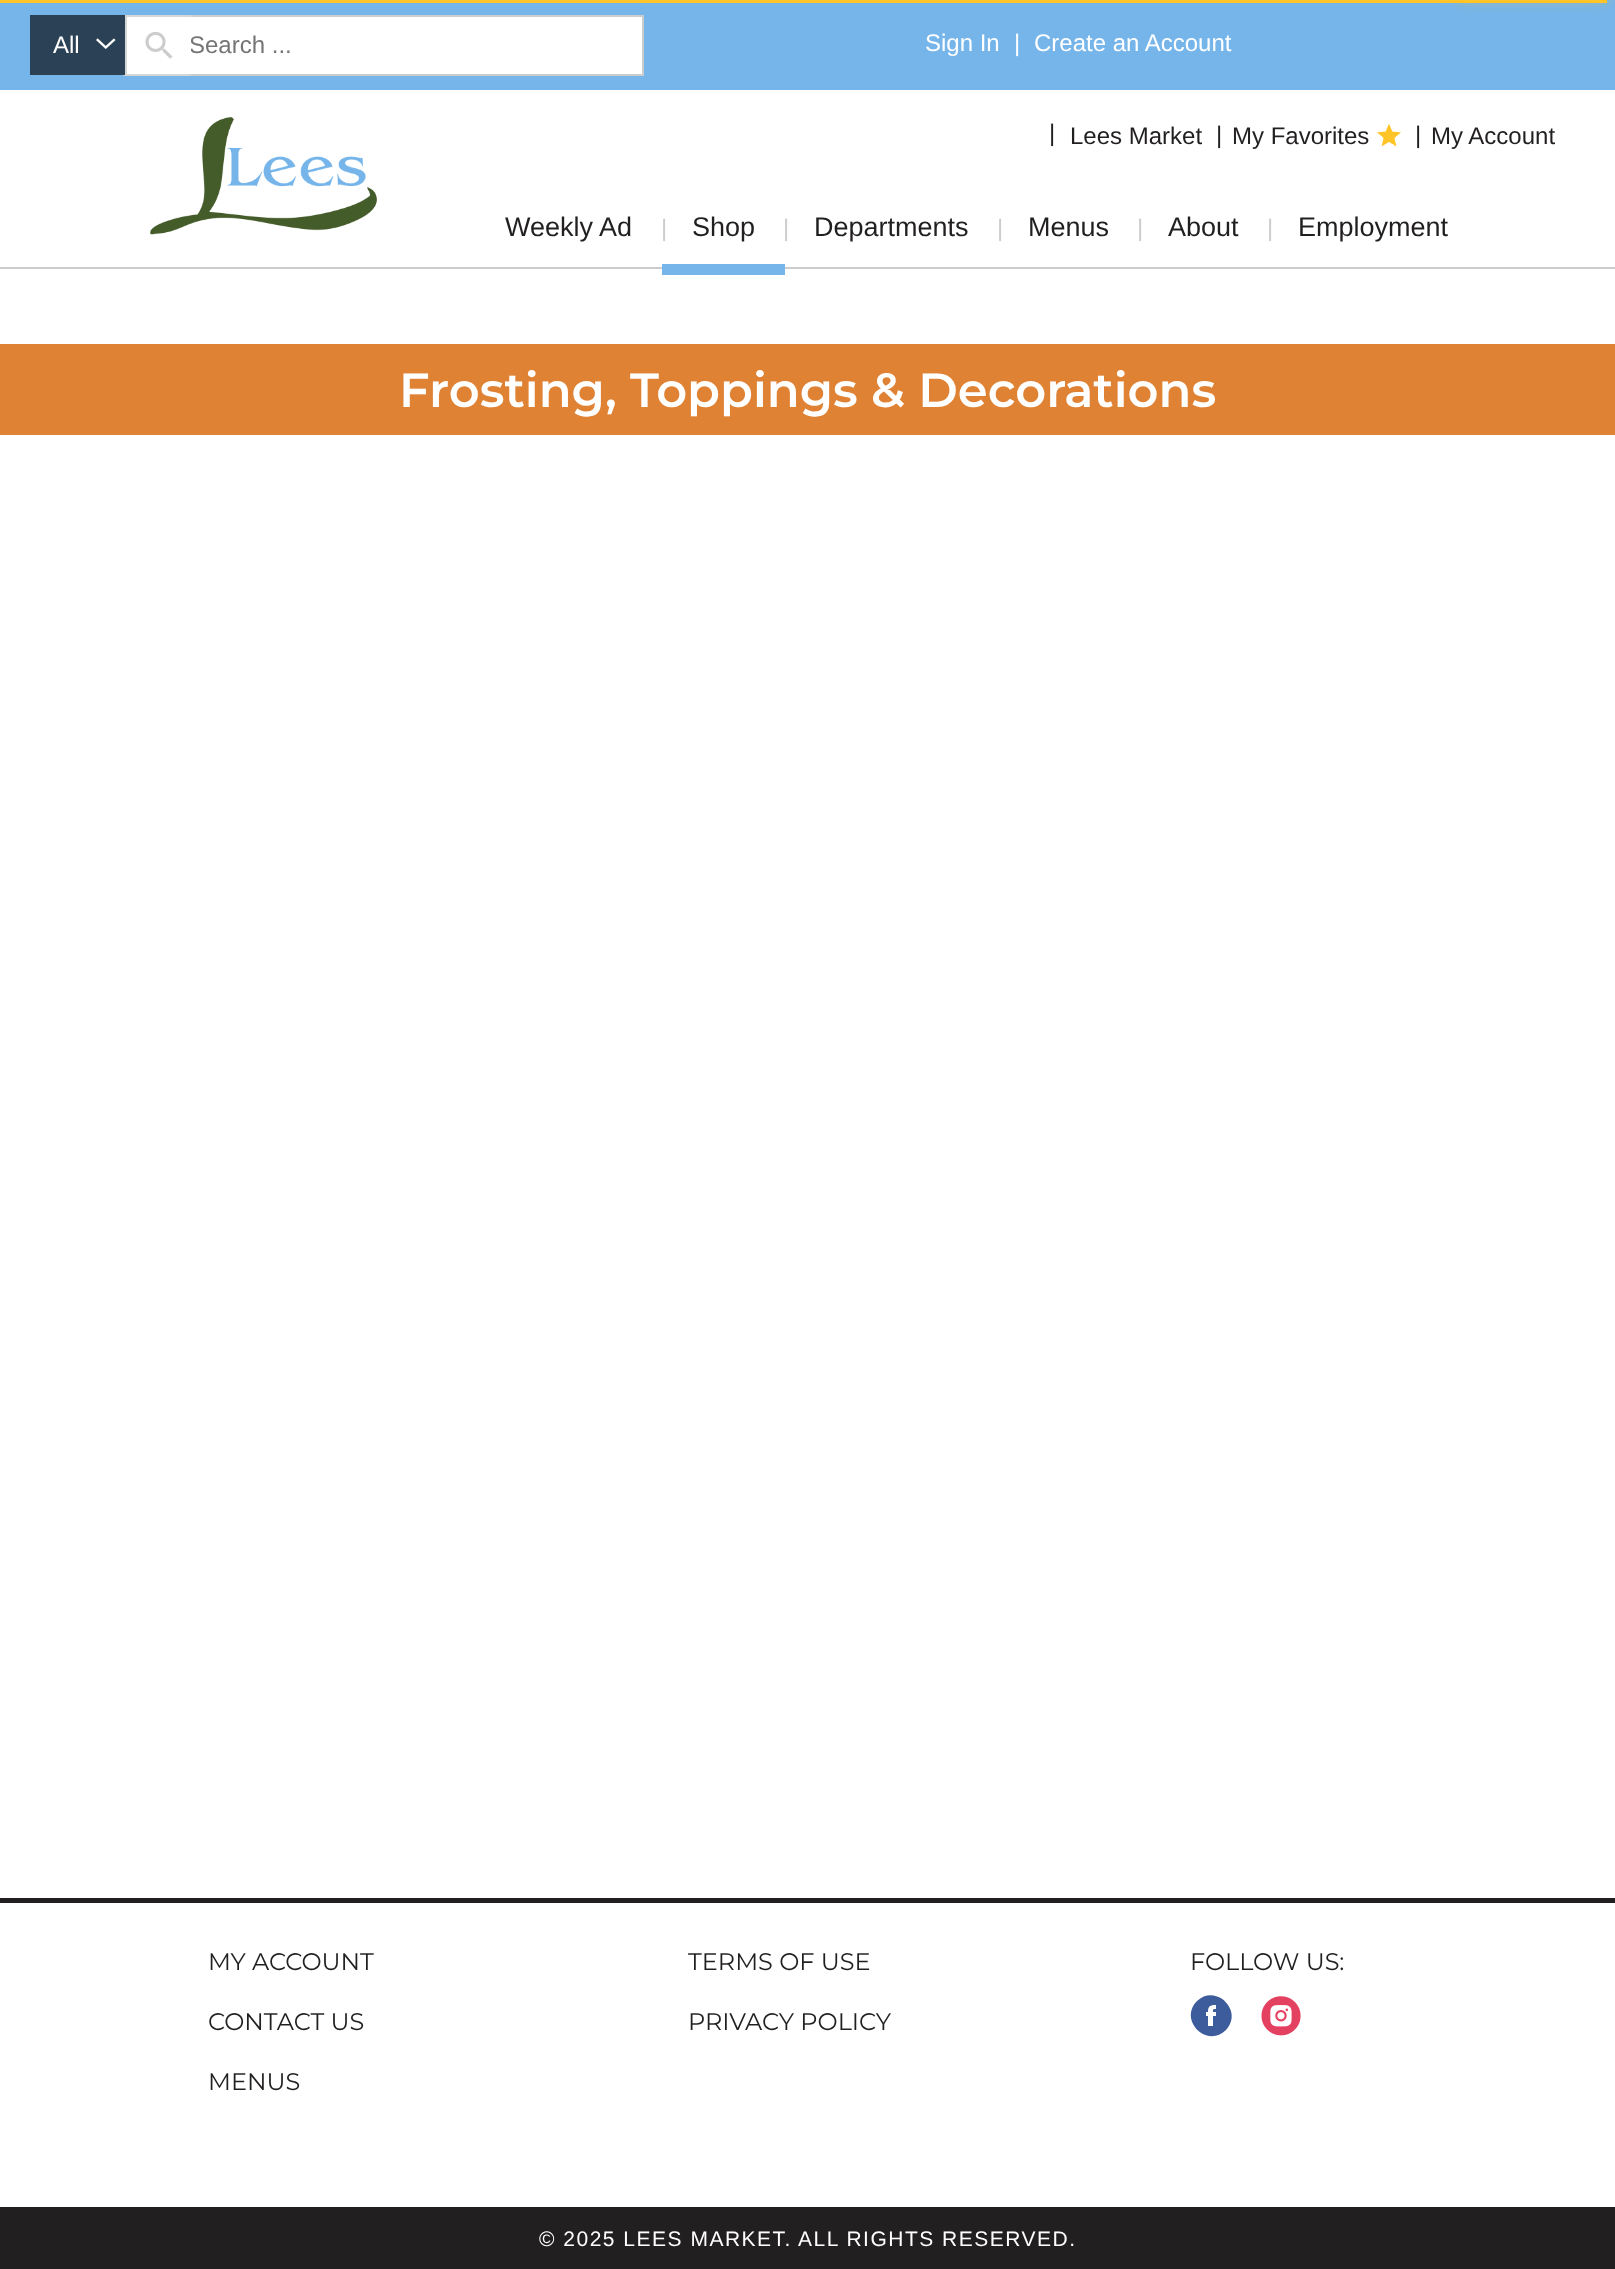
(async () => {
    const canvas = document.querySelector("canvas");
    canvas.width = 1615;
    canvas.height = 2269;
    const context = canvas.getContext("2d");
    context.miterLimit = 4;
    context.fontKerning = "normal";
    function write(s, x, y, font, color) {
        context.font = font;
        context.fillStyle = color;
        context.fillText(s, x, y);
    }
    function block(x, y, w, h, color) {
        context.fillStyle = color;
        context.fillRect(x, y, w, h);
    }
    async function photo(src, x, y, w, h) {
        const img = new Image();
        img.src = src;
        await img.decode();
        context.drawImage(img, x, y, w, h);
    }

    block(0, 0, 1615, 2269, "rgb(255, 255, 255)");
    block(0, 0, 1615, 90, "rgb(118, 181, 234)");
    block(0, 0, 1607, 3, "rgb(255, 196, 40)");
    context.filter = "blur(4px)";
    context.beginPath();
    context.rect(1457, -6, 150, 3);
    context.fill();
    context.filter = "none";
    context.filter = "blur(7.5px)";
    context.beginPath();
    context.rect(1457, -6, 150, 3);
    context.fill();
    context.filter = "none";
    block(191, 15, 453, 2, "rgb(204, 204, 204)");
    block(642, 15, 2, 60, "rgb(204, 204, 204)");
    block(123, 74, 521, 2, "rgb(204, 204, 204)");
    block(30, 15, 95, 60, "rgb(43, 66, 86)");
    write("All", 53, 53, "24px Liberation Sans", "rgb(255, 255, 255)");
    await photo("media/1.png", 96, 38, 20, 11);
    block(191, 17, 451, 57, "rgb(255, 255, 255)");
    write("Search ...", 189, 53, "24px Liberation Sans", "rgb(117, 117, 117)");
    block(127, 17, 64, 57, "rgb(255, 255, 255)");
    block(125, 15, 66, 2, "rgb(214, 214, 214)");
    block(125, 74, 66, 2, "rgb(214, 214, 214)");
    block(125, 15, 2, 60, "rgb(214, 214, 214)");
    await photo("media/2.png", 145, 31, 28, 28);
    write("Sign In", 925, 51, "24px Liberation Sans", "rgb(255, 255, 255)");
    write("|", 1014, 51, "24px Liberation Sans", "rgb(255, 255, 255)");
    write("Create an Account", 1034, 51, "24px Liberation Sans", "rgb(255, 255, 255)");
    write("|", 1049, 141, "24px Liberation Sans", "rgb(34, 31, 32)");
    write("Lees Market", 1070, 144, "24px Liberation Sans", "rgb(34, 31, 32)");
    write("|", 1216, 143, "24px Liberation Sans", "rgb(34, 31, 32)");
    write("My Favorites", 1232, 144, "24px Liberation Sans", "rgb(34, 31, 32)");
    await photo("media/3.png", 1377, 123, 24, 24);
    write("|", 1415, 143, "24px Liberation Sans", "rgb(34, 31, 32)");
    write("My Account", 1431, 144, "24px Liberation Sans", "rgb(34, 31, 32)");
    await photo("media/4.png", 150, 117, 227, 118);
    block(0, 267, 1615, 2, "rgb(204, 204, 204)");
    write("Weekly Ad", 505, 236, "27px Liberation Sans", "rgb(34, 31, 32)");
    write("|", 661, 236, "24px Liberation Sans", "rgb(204, 204, 204)");
    write("Shop", 692, 236, "27px Liberation Sans", "rgb(34, 31, 32)");
    write("|", 783, 236, "24px Liberation Sans", "rgb(204, 204, 204)");
    block(662, 264, 123, 11, "rgb(118, 181, 234)");
    write("Departments", 814, 236, "27px Liberation Sans", "rgb(34, 31, 32)");
    write("|", 997, 236, "24px Liberation Sans", "rgb(204, 204, 204)");
    write("Menus", 1028, 236, "27px Liberation Sans", "rgb(34, 31, 32)");
    write("|", 1137, 236, "24px Liberation Sans", "rgb(204, 204, 204)");
    write("About", 1168, 236, "27px Liberation Sans", "rgb(34, 31, 32)");
    write("|", 1267, 236, "24px Liberation Sans", "rgb(204, 204, 204)");
    write("Employment", 1298, 236, "27px Liberation Sans", "rgb(34, 31, 32)");
    block(0, 344, 1615, 91, "rgb(224, 130, 52)");
    write("Frosting, Toppings & Decorations", 399, 407, "600 48px Montserrat", "rgb(255, 255, 255)");
    block(0, 1898, 1615, 5, "rgb(34, 31, 32)");
    write("MY ACCOUNT", 208, 1970, "24px Montserrat", "rgb(34, 31, 32)");
    write("CONTACT US", 208, 2030, "24px Montserrat", "rgb(34, 31, 32)");
    write("MENUS", 208, 2090, "24px Montserrat", "rgb(34, 31, 32)");
    write("TERMS OF USE", 688, 1970, "24px Montserrat", "rgb(34, 31, 32)");
    write("PRIVACY POLICY", 688, 2030, "24px Montserrat", "rgb(34, 31, 32)");
    write("FOLLOW US:", 1190, 1970, "24px Montserrat", "rgb(34, 31, 32)");
    context.fillStyle = "rgb(60, 92, 156)";
    context.beginPath();
    context.moveTo(1226, 2030);
    context.bezierCurveTo(1207, 2049, 1178, 2020, 1197, 2001);
    context.bezierCurveTo(1216, 1983, 1244, 2011, 1226, 2030);
    context.closePath();
    context.moveTo(1216, 2016);
    context.lineTo(1216, 2012);
    context.lineTo(1213, 2012);
    context.bezierCurveTo(1213, 2009, 1213, 2009, 1216, 2009);
    context.lineTo(1216, 2005);
    context.bezierCurveTo(1210, 2005, 1208, 2006, 1208, 2012);
    context.lineTo(1206, 2012);
    context.lineTo(1206, 2016);
    context.lineTo(1208, 2016);
    context.lineTo(1208, 2026);
    context.lineTo(1213, 2026);
    context.lineTo(1213, 2016);
    context.closePath();
    context.fill();
    await photo("media/5.png", 1261, 1996, 40, 40);
    block(0, 2207, 1615, 62, "rgb(34, 31, 32)");
    context.letterSpacing = "1.5px";
    write("© 2025 LEES MARKET.", 539, 2246, "21px Liberation Sans", "rgb(255, 255, 255)");
    write("ALL RIGHTS RESERVED.", 798, 2246, "21px Liberation Sans", "rgb(255, 255, 255)");
})();
